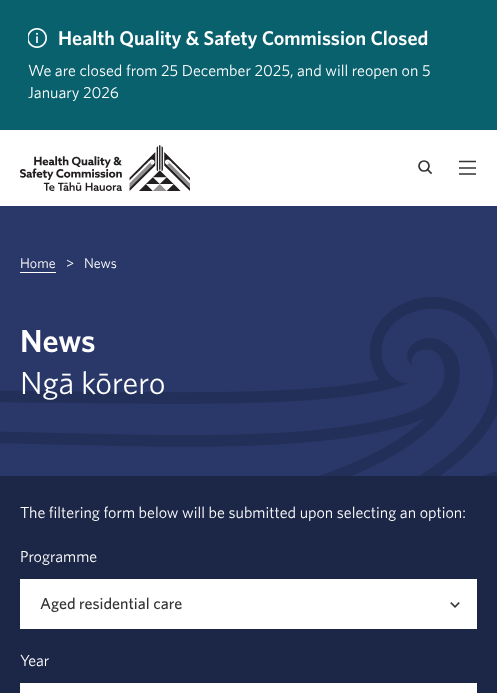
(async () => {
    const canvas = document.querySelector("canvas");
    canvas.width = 497;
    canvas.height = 693;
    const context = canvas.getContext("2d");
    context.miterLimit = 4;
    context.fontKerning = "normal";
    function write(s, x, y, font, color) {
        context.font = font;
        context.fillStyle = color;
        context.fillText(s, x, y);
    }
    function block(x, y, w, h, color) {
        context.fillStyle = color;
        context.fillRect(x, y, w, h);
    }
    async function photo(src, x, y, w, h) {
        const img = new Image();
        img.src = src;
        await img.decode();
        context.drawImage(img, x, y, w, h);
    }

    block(0, 0, 497, 693, "rgb(255, 255, 255)");
    block(0, 0, 497, 130, "rgb(9, 97, 110)");
    await photo("media/1.png", 28, 28, 19, 20);
    write("Health Quality & Safety Commission Closed", 58, 45, "600 20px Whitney", "rgb(255, 255, 255)");
    write("We are closed from 25 December 2025, and will reopen on 5", 28, 76, "16px Whitney", "rgb(255, 255, 255)");
    write("January 2026", 28, 98, "16px Whitney", "rgb(255, 255, 255)");
    await photo("media/2.png", 20, 145, 170, 46);
    context.beginPath();
    context.arc(424, 166, 5, 0, Math.PI * 2);
    context.strokeStyle = "rgb(51, 51, 51)";
    context.lineWidth = 1.7;
    context.stroke();
    context.beginPath();
    context.moveTo(428, 170);
    context.lineTo(431, 173);
    context.lineCap = "square";
    context.stroke();
    context.beginPath();
    context.moveTo(459, 161.5);
    context.lineTo(476, 161.5);
    context.moveTo(459, 168);
    context.lineTo(476, 168);
    context.moveTo(459, 174);
    context.lineTo(476, 174);
    context.lineWidth = 1.6;
    context.lineCap = "butt";
    context.stroke();
    block(0, 206, 497, 270, "rgb(41, 56, 104)");
    await photo("media/3.png", 0, 297, 497, 179);
    write("Home", 20, 268, "14px Whitney", "rgb(255, 255, 255)");
    block(20, 272, 36, 1, "rgb(255, 255, 255)");
    write(">", 66, 268, "14px Whitney", "rgb(255, 255, 255)");
    write("News", 84, 268, "14px Whitney", "rgb(255, 255, 255)");
    write("News", 20, 352, "600 32px Whitney", "rgb(255, 255, 255)");
    write("Ngā kōrero", 20, 394, "32px Whitney", "rgb(255, 255, 255)");
    block(0, 476, 497, 217, "rgb(28, 38, 71)");
    write("The filtering form below will be submitted upon selecting an option:", 20, 518, "16px Whitney", "rgb(255, 255, 255)");
    write("Programme", 20, 562, "16px Whitney", "rgb(255, 255, 255)");
    block(20, 579, 457, 50, "rgb(255, 255, 255)");
    await photo("media/4.png", 450, 602, 10, 6);
    write("Aged residential care", 40, 609, "500 16px Whitney", "rgb(51, 51, 51)");
    write("Year", 20, 666, "16px Whitney", "rgb(255, 255, 255)");
    block(20, 683, 457, 10, "rgb(255, 255, 255)");
})();
